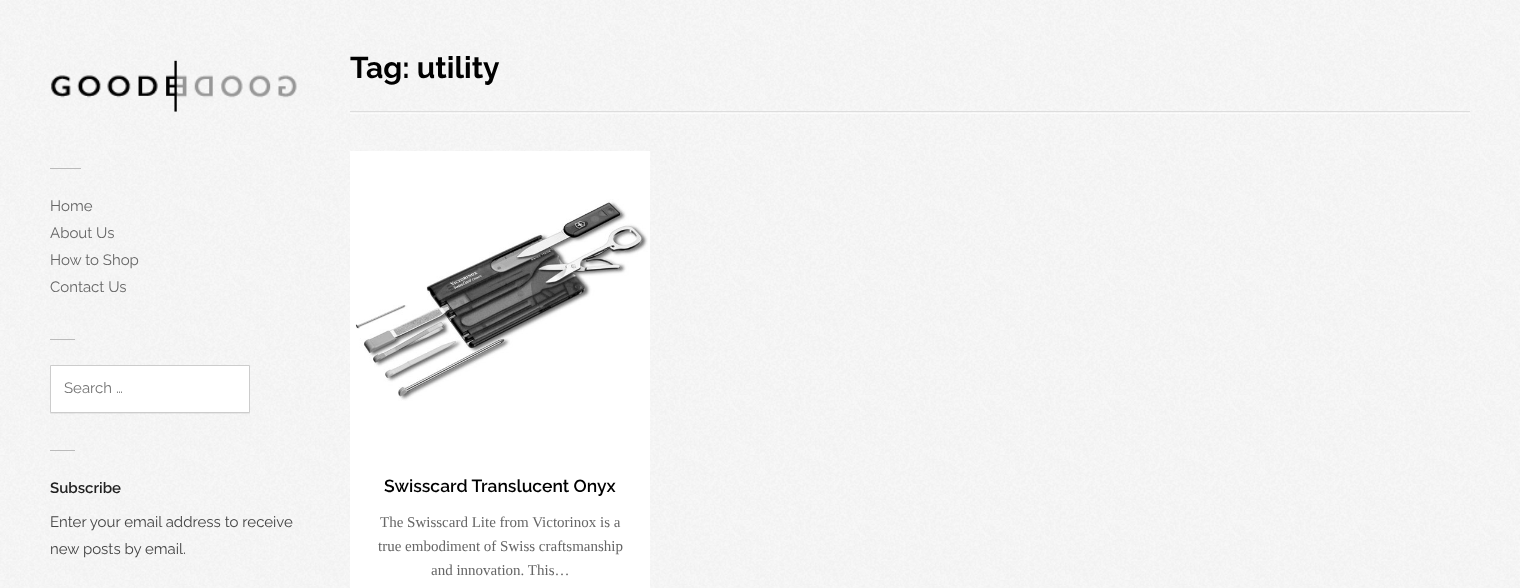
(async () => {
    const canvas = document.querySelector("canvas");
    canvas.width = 1520;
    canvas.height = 588;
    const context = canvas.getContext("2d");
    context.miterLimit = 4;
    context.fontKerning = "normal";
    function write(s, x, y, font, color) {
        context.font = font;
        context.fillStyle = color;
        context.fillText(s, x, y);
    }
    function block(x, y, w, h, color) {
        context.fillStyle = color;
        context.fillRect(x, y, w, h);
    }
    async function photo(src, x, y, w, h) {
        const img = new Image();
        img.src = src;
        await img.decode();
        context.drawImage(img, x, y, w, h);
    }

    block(0, 0, 1520, 588, "rgb(249, 249, 249)");
    await photo("media/1.png", 0, 0, 1520, 588);
    await photo("media/2.png", 51, 60, 246, 52);
    block(50, 168, 31, 1, "rgb(187, 187, 187)");
    write("Home", 50, 211, "15px Raleway", "rgb(102, 102, 102)");
    write("About Us", 50, 238, "15px Raleway", "rgb(102, 102, 102)");
    write("How to Shop", 50, 265, "15px Raleway", "rgb(102, 102, 102)");
    write("Contact Us", 50, 292, "15px Raleway", "rgb(102, 102, 102)");
    block(50, 339, 25, 1, "rgb(187, 187, 187)");
    context.fillStyle = "rgba(0, 0, 0, 0.06)";
    context.filter = "blur(0.5px)";
    context.beginPath();
    context.rect(50, 366, 200, 48);
    context.fill();
    context.filter = "none";
    context.fillStyle = "rgb(255, 255, 255)";
    context.beginPath();
    context.rect(50.5, 365.5, 199, 47);
    context.fill();
    context.strokeStyle = "rgb(204, 204, 204)";
    context.stroke();
    write("Search …", 64, 393, "15px Raleway", "rgb(117, 117, 117)");
    block(50, 450, 25, 1, "rgb(187, 187, 187)");
    write("Subscribe", 50, 493, "600 15px Raleway", "rgb(34, 34, 34)");
    write("Enter your email address to receive", 50, 527, "15px Raleway", "rgb(68, 68, 68)");
    write("new posts by email.", 50, 554, "15px Raleway", "rgb(68, 68, 68)");
    block(350, 113, 1120, 1, "rgba(255, 255, 255, 0.6)");
    write("Tag: utility", 350, 78, "bold 30px Raleway", "rgb(0, 0, 0)");
    block(350, 111, 1120, 1, "rgb(221, 221, 221)");
    block(350, 151, 300, 437, "rgb(255, 255, 255)");
    await photo("media/3.png", 355, 199, 293, 202);
    write("Swisscard Translucent Onyx", 384, 492, "600 17.5px Raleway", "rgb(0, 0, 0)");
    write("The Swisscard Lite from Victorinox is a", 380, 527, "15px Liberation Serif", "rgb(102, 102, 102)");
    write("true embodiment of Swiss craftsmanship", 378, 551, "15px Liberation Serif", "rgb(102, 102, 102)");
    write("and innovation. This…", 431, 575, "15px Liberation Serif", "rgb(102, 102, 102)");
})();
